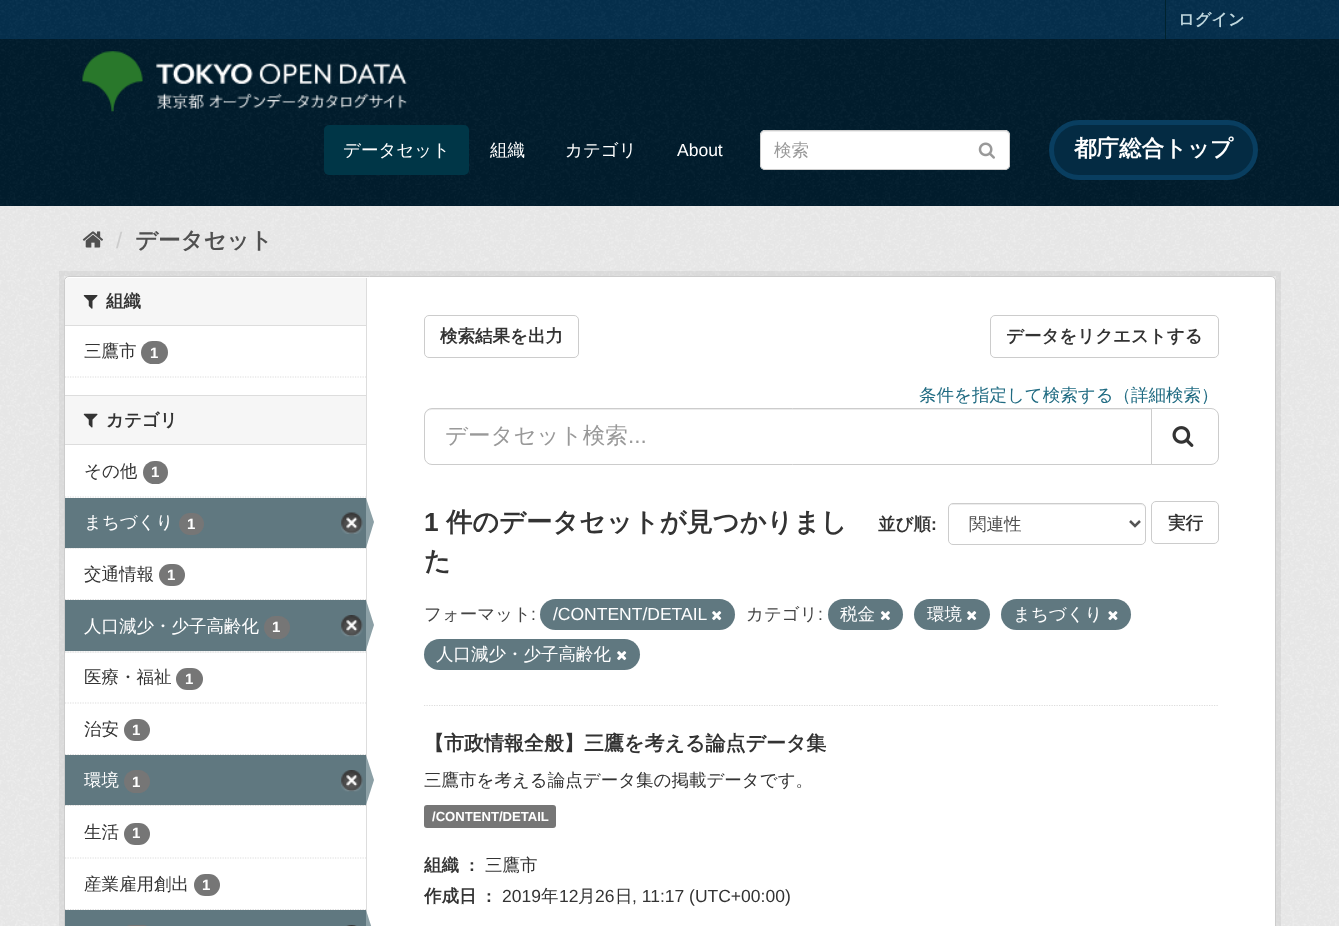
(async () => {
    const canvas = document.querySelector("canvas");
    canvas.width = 1339;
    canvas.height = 926;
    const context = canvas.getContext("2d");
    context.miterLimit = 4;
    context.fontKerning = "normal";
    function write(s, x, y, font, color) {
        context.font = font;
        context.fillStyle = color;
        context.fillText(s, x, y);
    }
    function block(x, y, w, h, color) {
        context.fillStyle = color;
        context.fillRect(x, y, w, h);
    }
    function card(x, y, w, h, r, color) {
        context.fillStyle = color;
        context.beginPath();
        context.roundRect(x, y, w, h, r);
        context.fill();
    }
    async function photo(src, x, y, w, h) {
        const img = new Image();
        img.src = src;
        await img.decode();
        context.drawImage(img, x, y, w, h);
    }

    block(0, 0, 1339, 926, "rgb(6, 48, 78)");
    await photo("media/1.png", 0, 0, 1338, 38);
    block(1165, 0, 1, 39, "rgb(0, 35, 46)");
    write("ログイン", 1178, 25, "bold 16.25px WenQuanYi Zen Hei", "rgb(191, 215, 222)");
    block(0, 39, 1339, 167, "rgb(2, 29, 46)");
    await photo("media/2.png", 0, 39, 1339, 167);
    await photo("media/3.png", 82, 51, 325, 61);
    card(324, 125, 145, 50, 5, "rgb(0, 54, 71)");
    write("データセット", 343, 156, "500 17.5px WenQuanYi Zen Hei", "rgb(255, 255, 255)");
    write("組織", 490, 156, "500 17.5px WenQuanYi Zen Hei", "rgb(255, 255, 255)");
    write("カテゴリ", 565, 156, "500 17.5px WenQuanYi Zen Hei", "rgb(255, 255, 255)");
    write("About", 677, 156, "17.5px Liberation Sans", "rgb(255, 255, 255)");
    card(760, 130, 250, 40, 5, "rgb(255, 255, 255)");
    context.fillStyle = "rgb(236, 236, 236)";
    context.beginPath();
    context.moveTo(765, 132);
    context.lineTo(1005, 132);
    context.bezierCurveTo(1007, 132, 1009, 134, 1009, 136);
    context.lineTo(1009, 135);
    context.bezierCurveTo(1009, 133, 1007, 131, 1005, 131);
    context.lineTo(765, 131);
    context.bezierCurveTo(763, 131, 761, 133, 761, 135);
    context.lineTo(761, 136);
    context.bezierCurveTo(761, 134, 763, 132, 765, 132);
    context.closePath();
    context.fill();
    context.beginPath();
    context.roundRect(760.5, 130.5, 249, 39, 4.5);
    context.strokeStyle = "rgb(204, 204, 204)";
    context.stroke();
    write("検索", 774, 156, "500 17.5px WenQuanYi Zen Hei", "rgb(153, 153, 153)");
    await photo("media/4.png", 978, 142, 17, 17);
    context.fillStyle = "rgb(4, 43, 67)";
    context.beginPath();
    context.roundRect(1051.5, 122.5, 204, 55, 27.5);
    context.fill();
    context.strokeStyle = "rgb(9, 62, 96)";
    context.lineWidth = 5;
    context.stroke();
    write("都庁総合トップ", 1074, 156, "bold 22.5px WenQuanYi Zen Hei", "rgb(255, 255, 255)");
    block(0, 206, 1339, 720, "rgb(238, 238, 238)");
    await photo("media/5.png", 0, 206, 1339, 720);
    await photo("media/6.png", 82, 231, 21, 17);
    write("/", 116, 248, "22.5px Liberation Sans", "rgb(204, 204, 204)");
    write("データセット", 135, 248, "bold 22.5px WenQuanYi Zen Hei", "rgb(80, 80, 80)");
    context.strokeStyle = "rgba(0, 0, 0, 0.05)";
    context.strokeRect(61.5, 273.5, 1217, 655);
    context.fillStyle = "rgb(255, 255, 255)";
    context.beginPath();
    context.roundRect(64.5, 276.5, 1211, 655, 4.5);
    context.fill();
    context.strokeStyle = "rgb(204, 204, 204)";
    context.lineWidth = 1;
    context.stroke();
    context.fillStyle = "rgb(246, 246, 246)";
    context.beginPath();
    context.roundRect(65, 278, 301, 48, [4, 0, 0, 0]);
    context.fill();
    block(65, 325, 301, 1, "rgb(221, 221, 221)");
    await photo("media/7.png", 83, 295, 15, 14);
    write("組織", 106, 307, "bold 17.5px WenQuanYi Zen Hei", "rgb(51, 51, 51)");
    write("三鷹市", 84, 357, "500 17.5px WenQuanYi Zen Hei", "rgb(51, 51, 51)");
    card(141, 341, 27, 23, 11.5, "rgb(118, 118, 118)");
    write("1", 150, 358, "bold 15px Liberation Sans", "rgb(255, 255, 255)");
    context.beginPath();
    context.moveTo(65, 377);
    context.lineTo(366, 377);
    context.strokeStyle = "rgb(221, 221, 221)";
    context.lineWidth = 1.2;
    context.setLineDash([1.25, 1.25]);
    context.stroke();
    block(65, 396, 301, 48, "rgb(246, 246, 246)");
    block(65, 395, 301, 1, "rgb(221, 221, 221)");
    block(65, 444, 301, 1, "rgb(221, 221, 221)");
    await photo("media/8.png", 83, 413, 15, 15);
    write("カテゴリ", 106, 426, "bold 17.5px WenQuanYi Zen Hei", "rgb(51, 51, 51)");
    context.beginPath();
    context.moveTo(65, 497);
    context.lineTo(366, 497);
    context.stroke();
    write("その他", 84, 477, "500 17.5px WenQuanYi Zen Hei", "rgb(51, 51, 51)");
    card(143, 461, 25, 23, 11.5, "rgb(118, 118, 118)");
    write("1", 151, 477, "bold 15px Liberation Sans", "rgb(255, 255, 255)");
    block(65, 548, 301, 1, "rgb(246, 246, 246)");
    context.beginPath();
    context.moveTo(65, 548);
    context.lineTo(366, 548);
    context.stroke();
    block(65, 498, 301, 50, "rgb(96, 120, 128)");
    write("まちづくり", 84, 528, "500 17.5px WenQuanYi Zen Hei", "rgb(255, 255, 255)");
    card(179, 513, 25, 22, 11, "rgb(118, 118, 118)");
    write("1", 187, 529, "bold 15px Liberation Sans", "rgb(255, 255, 255)");
    await photo("media/9.png", 341, 512, 22, 22);
    block(366, 278, 1, 635, "rgb(221, 221, 221)");
    context.fillStyle = "rgb(140, 160, 166)";
    context.beginPath();
    context.moveTo(366, 548);
    context.lineTo(366, 498);
    context.lineTo(374, 522);
    context.closePath();
    context.fill();
    context.beginPath();
    context.moveTo(65, 599.5);
    context.lineTo(366, 599.5);
    context.stroke();
    write("交通情報", 84, 580, "500 17.5px WenQuanYi Zen Hei", "rgb(51, 51, 51)");
    card(159, 564, 26, 22, 11, "rgb(118, 118, 118)");
    write("1", 167, 580, "bold 15px Liberation Sans", "rgb(255, 255, 255)");
    block(65, 651, 301, 2, "rgb(246, 246, 246)");
    context.beginPath();
    context.moveTo(65, 652);
    context.lineTo(366, 652);
    context.stroke();
    block(65, 600, 301, 51, "rgb(96, 120, 128)");
    write("人口減少・少子高齢化", 84, 632, "500 17.5px WenQuanYi Zen Hei", "rgb(255, 255, 255)");
    card(264, 616, 26, 23, 11.5, "rgb(118, 118, 118)");
    write("1", 272, 632, "bold 15px Liberation Sans", "rgb(255, 255, 255)");
    await photo("media/10.png", 341, 615, 22, 22);
    context.fillStyle = "rgb(140, 160, 166)";
    context.beginPath();
    context.moveTo(366, 650);
    context.lineTo(366, 600);
    context.lineTo(374, 625);
    context.closePath();
    context.fill();
    context.beginPath();
    context.moveTo(65, 703);
    context.lineTo(366, 703);
    context.stroke();
    write("医療・福祉", 84, 683, "500 17.5px WenQuanYi Zen Hei", "rgb(51, 51, 51)");
    card(176, 668, 27, 22, 11, "rgb(118, 118, 118)");
    write("1", 185, 684, "bold 15px Liberation Sans", "rgb(255, 255, 255)");
    context.beginPath();
    context.moveTo(65, 754.5);
    context.lineTo(366, 754.5);
    context.stroke();
    write("治安", 84, 735, "500 17.5px WenQuanYi Zen Hei", "rgb(51, 51, 51)");
    card(124, 719, 26, 22, 11, "rgb(118, 118, 118)");
    write("1", 132, 735, "bold 15px Liberation Sans", "rgb(255, 255, 255)");
    block(66, 805, 299, 1, "rgb(246, 246, 246)");
    context.beginPath();
    context.moveTo(65, 805.5);
    context.lineTo(366, 805.5);
    context.stroke();
    block(65, 755, 301, 50, "rgb(96, 120, 128)");
    write("環境", 84, 786, "500 17.5px WenQuanYi Zen Hei", "rgb(255, 255, 255)");
    card(124, 770, 26, 23, 11.5, "rgb(118, 118, 118)");
    write("1", 132, 787, "bold 15px Liberation Sans", "rgb(255, 255, 255)");
    await photo("media/10.png", 341, 770, 22, 22);
    context.fillStyle = "rgb(140, 160, 166)";
    context.beginPath();
    context.moveTo(366, 805);
    context.lineTo(366, 755);
    context.lineTo(374, 780);
    context.closePath();
    context.fill();
    context.beginPath();
    context.moveTo(65, 858);
    context.lineTo(366, 858);
    context.stroke();
    write("生活", 84, 838, "500 17.5px WenQuanYi Zen Hei", "rgb(51, 51, 51)");
    card(124, 823, 26, 22, 11, "rgb(118, 118, 118)");
    write("1", 132, 838, "bold 15px Liberation Sans", "rgb(255, 255, 255)");
    context.beginPath();
    context.moveTo(65, 909.5);
    context.lineTo(366, 909.5);
    context.stroke();
    write("産業雇用創出", 84, 890, "500 17.5px WenQuanYi Zen Hei", "rgb(51, 51, 51)");
    card(194, 874, 26, 22, 11, "rgb(118, 118, 118)");
    write("1", 202, 890, "bold 15px Liberation Sans", "rgb(255, 255, 255)");
    block(65, 910, 301, 16, "rgb(96, 120, 128)");
    context.fillStyle = "rgb(140, 160, 166)";
    context.beginPath();
    context.moveTo(366, 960);
    context.lineTo(366, 910);
    context.lineTo(374, 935);
    context.closePath();
    context.fill();
    card(124, 925, 26, 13, 11.5, "rgb(118, 118, 118)");
    await photo("media/11.png", 346, 925, 11, 1);
    context.beginPath();
    context.roundRect(424.5, 315.5, 154, 42, 4.5);
    context.strokeStyle = "rgb(204, 204, 204)";
    context.lineWidth = 1;
    context.setLineDash([]);
    context.stroke();
    write("検索結果を出力", 440, 342, "bold 17.5px WenQuanYi Zen Hei", "rgb(51, 51, 51)");
    context.beginPath();
    context.roundRect(990.5, 315.5, 228, 42, 4.5);
    context.stroke();
    write("データをリクエストする", 1006, 342, "bold 17.5px WenQuanYi Zen Hei", "rgb(51, 51, 51)");
    context.beginPath();
    context.moveTo(424, 705.5);
    context.lineTo(1219, 705.5);
    context.strokeStyle = "rgb(221, 221, 221)";
    context.lineWidth = 1.2;
    context.setLineDash([1.25, 1.25]);
    context.stroke();
    write("条件を指定して検索する（詳細検索）", 919, 401, "500 17.5px WenQuanYi Zen Hei", "rgb(32, 107, 130)");
    context.fillStyle = "rgb(236, 236, 236)";
    context.beginPath();
    context.moveTo(431, 410);
    context.lineTo(1151, 410);
    context.lineTo(1151, 409);
    context.lineTo(431, 409);
    context.bezierCurveTo(427, 409, 425, 412, 425, 416);
    context.bezierCurveTo(425, 413, 428, 410, 431, 410);
    context.closePath();
    context.fill();
    context.beginPath();
    context.roundRect(424.5, 408.5, 728, 56, [7.5, 0, 0, 7.5]);
    context.strokeStyle = "rgb(204, 204, 204)";
    context.lineWidth = 1;
    context.setLineDash([]);
    context.stroke();
    write("データセット検索", 445, 443, "500 22.5px WenQuanYi Zen Hei", "rgb(153, 153, 153)");
    write("...", 628, 443, "22.5px Liberation Sans", "rgb(153, 153, 153)");
    context.fillStyle = "rgb(255, 255, 255)";
    context.beginPath();
    context.roundRect(1151.5, 408.5, 67, 56, [0, 7.5, 7.5, 0]);
    context.fill();
    context.stroke();
    await photo("media/12.png", 1172, 426, 22, 21);
    write("1", 424, 531, "bold 26.25px Liberation Sans", "rgb(51, 51, 51)");
    write("件のデータセットが見つかりまし", 446, 531, "bold 26.25px WenQuanYi Zen Hei", "rgb(51, 51, 51)");
    write("た", 424, 570, "bold 26.25px WenQuanYi Zen Hei", "rgb(51, 51, 51)");
    write("並び順", 878, 530, "bold 17.5px WenQuanYi Zen Hei", "rgb(51, 51, 51)");
    write(":", 931, 530, "bold 17.5px Liberation Sans", "rgb(51, 51, 51)");
    context.fillStyle = "rgb(236, 236, 236)";
    context.beginPath();
    context.moveTo(952, 505);
    context.lineTo(1141, 505);
    context.bezierCurveTo(1143, 505, 1145, 507, 1145, 509);
    context.lineTo(1145, 508);
    context.bezierCurveTo(1145, 506, 1143, 504, 1141, 504);
    context.lineTo(953, 504);
    context.bezierCurveTo(951, 504, 949, 506, 949, 508);
    context.lineTo(949, 509);
    context.bezierCurveTo(949, 507, 950, 505, 952, 505);
    context.closePath();
    context.fill();
    context.beginPath();
    context.roundRect(948.5, 503.5, 197, 41, 4.5);
    context.stroke();
    context.beginPath();
    context.moveTo(1130, 521);
    context.lineTo(1135, 526);
    context.lineTo(1140, 521);
    context.strokeStyle = "rgb(85, 85, 85)";
    context.lineWidth = 2.5;
    context.stroke();
    write("関連性", 969, 530, "500 17.5px WenQuanYi Zen Hei", "rgb(80, 80, 80)");
    context.beginPath();
    context.roundRect(1151.5, 501.5, 67, 42, 4.5);
    context.strokeStyle = "rgb(204, 204, 204)";
    context.lineWidth = 1;
    context.stroke();
    write("実行", 1168, 529, "bold 17.5px WenQuanYi Zen Hei", "rgb(51, 51, 51)");
    write("フォーマット", 424, 620, "500 17.5px WenQuanYi Zen Hei", "rgb(68, 68, 68)");
    write(":", 531, 620, "17.5px Liberation Sans", "rgb(68, 68, 68)");
    card(540, 599, 195, 31, 15.5, "rgb(96, 120, 128)");
    write("/CONTENT/DETAIL", 553, 620, "17.5px Liberation Sans", "rgb(255, 255, 255)");
    await photo("media/13.png", 712, 611, 10, 10);
    write("カテゴリ", 746, 620, "500 17.5px WenQuanYi Zen Hei", "rgb(68, 68, 68)");
    write(":", 818, 620, "17.5px Liberation Sans", "rgb(68, 68, 68)");
    card(828, 599, 75, 31, 15.5, "rgb(96, 120, 128)");
    write("税金", 840, 620, "500 17.5px WenQuanYi Zen Hei", "rgb(255, 255, 255)");
    await photo("media/14.png", 880, 611, 10, 10);
    card(914, 599, 76, 31, 15.5, "rgb(96, 120, 128)");
    write("環境", 927, 620, "500 17.5px WenQuanYi Zen Hei", "rgb(255, 255, 255)");
    await photo("media/13.png", 967, 611, 10, 10);
    card(1001, 599, 130, 31, 15.5, "rgb(96, 120, 128)");
    write("まちづくり", 1013, 620, "500 17.5px WenQuanYi Zen Hei", "rgb(255, 255, 255)");
    await photo("media/15.png", 1108, 611, 10, 10);
    card(424, 639, 216, 31, 15.5, "rgb(96, 120, 128)");
    write("人口減少・少子高齢化", 436, 660, "500 17.5px WenQuanYi Zen Hei", "rgb(255, 255, 255)");
    await photo("media/13.png", 617, 651, 10, 10);
    write("【市政情報全般】三鷹を考える論点データ集", 424, 750, "bold 20px WenQuanYi Zen Hei", "rgb(51, 51, 51)");
    write("三鷹市を考える論点データ集の掲載データです。", 424, 786, "500 17.5px WenQuanYi Zen Hei", "rgb(51, 51, 51)");
    card(424, 805, 132, 23, 3, "rgb(118, 118, 118)");
    write("/CONTENT/DETAIL", 432, 821, "bold 13.1px Liberation Sans", "rgb(255, 255, 255)");
    write("組織", 424, 871, "bold 17.5px WenQuanYi Zen Hei", "rgb(51, 51, 51)");
    write(":", 469, 871, "bold 17.5px Liberation Sans", "rgb(51, 51, 51)");
    write("三鷹市", 485, 871, "500 17.5px WenQuanYi Zen Hei", "rgb(51, 51, 51)");
    write("作成日", 424, 902, "bold 17.5px WenQuanYi Zen Hei", "rgb(51, 51, 51)");
    write(":", 486, 902, "bold 17.5px Liberation Sans", "rgb(51, 51, 51)");
    write("2019", 502, 902, "17.5px Liberation Sans", "rgb(51, 51, 51)");
    write("年", 541, 902, "500 17.5px WenQuanYi Zen Hei", "rgb(51, 51, 51)");
    write("12", 559, 902, "17.5px Liberation Sans", "rgb(51, 51, 51)");
    write("月", 578, 902, "500 17.5px WenQuanYi Zen Hei", "rgb(51, 51, 51)");
    write("26", 595, 902, "17.5px Liberation Sans", "rgb(51, 51, 51)");
    write("日", 615, 902, "500 17.5px WenQuanYi Zen Hei", "rgb(51, 51, 51)");
    write(", 11:17 (UTC+00:00)", 632, 902, "17.5px Liberation Sans", "rgb(51, 51, 51)");
})();
